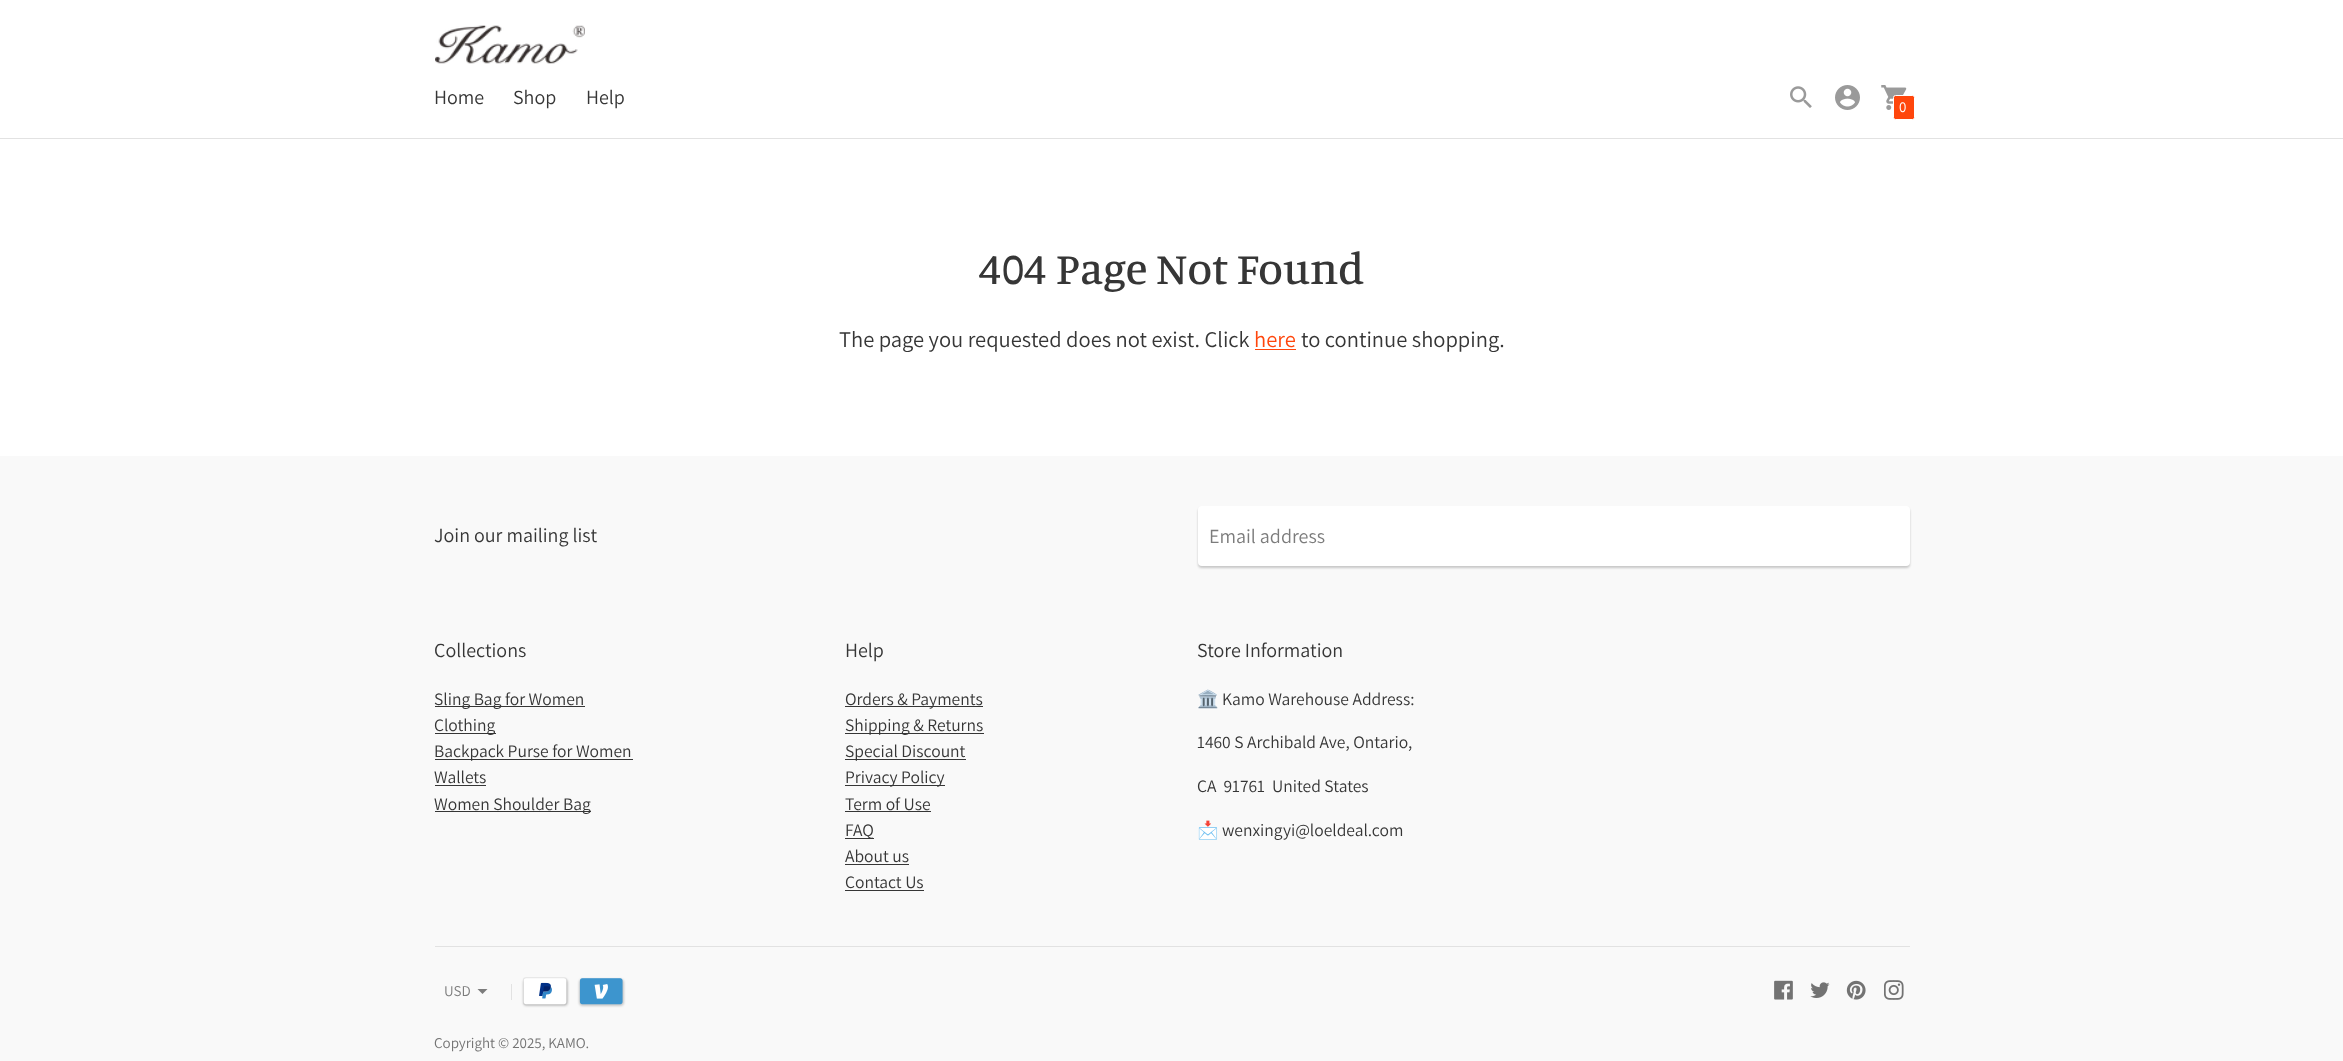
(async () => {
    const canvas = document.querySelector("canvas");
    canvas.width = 2343;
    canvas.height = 1061;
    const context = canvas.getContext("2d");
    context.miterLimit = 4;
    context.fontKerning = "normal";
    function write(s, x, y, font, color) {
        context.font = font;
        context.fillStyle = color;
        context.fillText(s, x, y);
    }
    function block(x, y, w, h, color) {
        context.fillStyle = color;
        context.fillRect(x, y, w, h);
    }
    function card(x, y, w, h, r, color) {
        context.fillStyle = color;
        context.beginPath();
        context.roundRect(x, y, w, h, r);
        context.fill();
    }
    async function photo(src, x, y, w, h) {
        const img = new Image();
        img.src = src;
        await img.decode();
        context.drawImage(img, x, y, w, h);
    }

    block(0, 0, 2343, 1061, "rgb(255, 255, 255)");
    block(0, 138, 2343, 1, "rgb(226, 226, 226)");
    await photo("media/1.png", 435, 25, 150, 39);
    write("Home", 434, 104, "20px Assistant", "rgb(54, 54, 54)");
    write("Shop", 513, 104, "20px Assistant", "rgb(54, 54, 54)");
    write("Help", 586, 104, "20px Assistant", "rgb(54, 54, 54)");
    await photo("media/2.png", 1790, 86, 22, 22);
    await photo("media/3.png", 1835, 85, 25, 25);
    await photo("media/4.png", 1881, 85, 26, 25);
    context.fillStyle = "rgb(255, 70, 12)";
    context.beginPath();
    context.roundRect(1893.5, 95.5, 21, 24, 2);
    context.fill();
    context.strokeStyle = "rgb(255, 255, 255)";
    context.stroke();
    write("0", 1899, 112, "15px Assistant", "rgb(255, 255, 255)");
    write("404 Page Not Found", 979, 284, "500 45px Manuale", "rgb(54, 54, 54)");
    write("The page you requested does not exist. Click", 839, 347, "22.5px Assistant", "rgb(54, 54, 54)");
    write("here", 1254, 347, "22.5px Assistant", "rgb(255, 70, 12)");
    block(1255, 349, 41, 1, "rgb(255, 70, 12)");
    write("to continue shopping.", 1301, 347, "22.5px Assistant", "rgb(54, 54, 54)");
    block(0, 456, 2343, 605, "rgb(249, 249, 249)");
    write("Join our mailing list", 434, 542, "20px Assistant", "rgb(54, 54, 54)");
    context.fillStyle = "rgba(0, 0, 0, 0.2)";
    context.filter = "blur(1px)";
    context.beginPath();
    context.roundRect(1198, 508, 712, 60, 4);
    context.fill();
    context.filter = "none";
    card(1198, 506, 712, 60, 4, "rgb(255, 255, 255)");
    write("Email address", 1209, 543, "20px Assistant", "rgb(124, 124, 124)");
    write("Collections", 434, 657, "20px Assistant", "rgb(54, 54, 54)");
    block(435, 706, 150, 1, "rgb(54, 54, 54)");
    write("Sling Bag for Women", 434, 705, "17.5px Assistant", "rgb(54, 54, 54)");
    block(435, 733, 61, 1, "rgb(54, 54, 54)");
    write("Clothing", 434, 731, "17.5px Assistant", "rgb(54, 54, 54)");
    block(435, 759, 198, 1, "rgb(54, 54, 54)");
    write("Backpack Purse for Women", 434, 757, "17.5px Assistant", "rgb(54, 54, 54)");
    write("Wallets", 434, 783, "17.5px Assistant", "rgb(54, 54, 54)");
    block(435, 785, 51, 1, "rgb(54, 54, 54)");
    block(435, 811, 156, 1, "rgb(54, 54, 54)");
    write("Women Shoulder Bag", 434, 810, "17.5px Assistant", "rgb(54, 54, 54)");
    write("Help", 845, 657, "20px Assistant", "rgb(54, 54, 54)");
    block(845, 706, 138, 1, "rgb(54, 54, 54)");
    write("Orders & Payments", 845, 705, "17.5px Assistant", "rgb(54, 54, 54)");
    block(845, 733, 139, 1, "rgb(54, 54, 54)");
    write("Shipping & Returns", 845, 731, "17.5px Assistant", "rgb(54, 54, 54)");
    block(845, 759, 121, 1, "rgb(54, 54, 54)");
    write("Special Discount", 845, 757, "17.5px Assistant", "rgb(54, 54, 54)");
    block(845, 785, 100, 1, "rgb(54, 54, 54)");
    write("Privacy Policy", 845, 783, "17.5px Assistant", "rgb(54, 54, 54)");
    write("Term of Use", 845, 810, "17.5px Assistant", "rgb(54, 54, 54)");
    block(845, 811, 86, 1, "rgb(54, 54, 54)");
    block(845, 838, 29, 1, "rgb(54, 54, 54)");
    write("FAQ", 845, 836, "17.5px Assistant", "rgb(54, 54, 54)");
    write("About us", 845, 862, "17.5px Assistant", "rgb(54, 54, 54)");
    block(845, 864, 64, 1, "rgb(54, 54, 54)");
    write("Contact Us", 845, 888, "17.5px Assistant", "rgb(54, 54, 54)");
    block(845, 890, 79, 1, "rgb(54, 54, 54)");
    write("Store Information", 1197, 657, "20px Assistant", "rgb(54, 54, 54)");
    write("🏛️", 1197, 705, "17.5px Noto Color Emoji", "rgb(54, 54, 54)");
    write("Kamo Warehouse Address:", 1222, 705, "17.5px Assistant", "rgb(54, 54, 54)");
    write("1460 S Archibald Ave, Ontario,", 1197, 748, "17.5px Assistant", "rgb(54, 54, 54)");
    write("CA  91761  United States", 1197, 792, "17.5px Assistant", "rgb(54, 54, 54)");
    write("📩", 1197, 836, "17.5px Noto Color Emoji", "rgb(54, 54, 54)");
    write("wenxingyi@loeldeal.com", 1222, 836, "17.5px Assistant", "rgb(54, 54, 54)");
    block(435, 946, 1475, 1, "rgb(226, 226, 226)");
    write("USD", 444, 996, "15px Assistant", "rgb(124, 124, 124)");
    context.beginPath();
    context.moveTo(477.5, 989);
    context.lineTo(487.5, 989);
    context.lineTo(482.5, 994);
    context.closePath();
    context.fill();
    block(511, 984, 1, 16, "rgb(226, 226, 226)");
    context.fillStyle = "rgba(0, 0, 0, 0.2)";
    context.filter = "blur(1px)";
    context.beginPath();
    context.roundRect(523, 979, 45, 27, 4);
    context.fill();
    context.filter = "none";
    await photo("media/5.png", 523, 977, 45, 29);
    context.filter = "blur(1px)";
    context.beginPath();
    context.roundRect(579, 979, 45, 27, 4);
    context.fill();
    context.filter = "none";
    await photo("media/6.png", 579, 978, 44, 27);
    write("Copyright © 2025, KAMO.", 434, 1048, "15px Assistant", "rgb(115, 115, 115)");
    await photo("media/7.png", 1774, 980, 19, 20);
    await photo("media/8.png", 1810, 982, 20, 16);
    await photo("media/9.png", 1846, 980, 20, 20);
    await photo("media/10.png", 1884, 980, 20, 20);
})();
